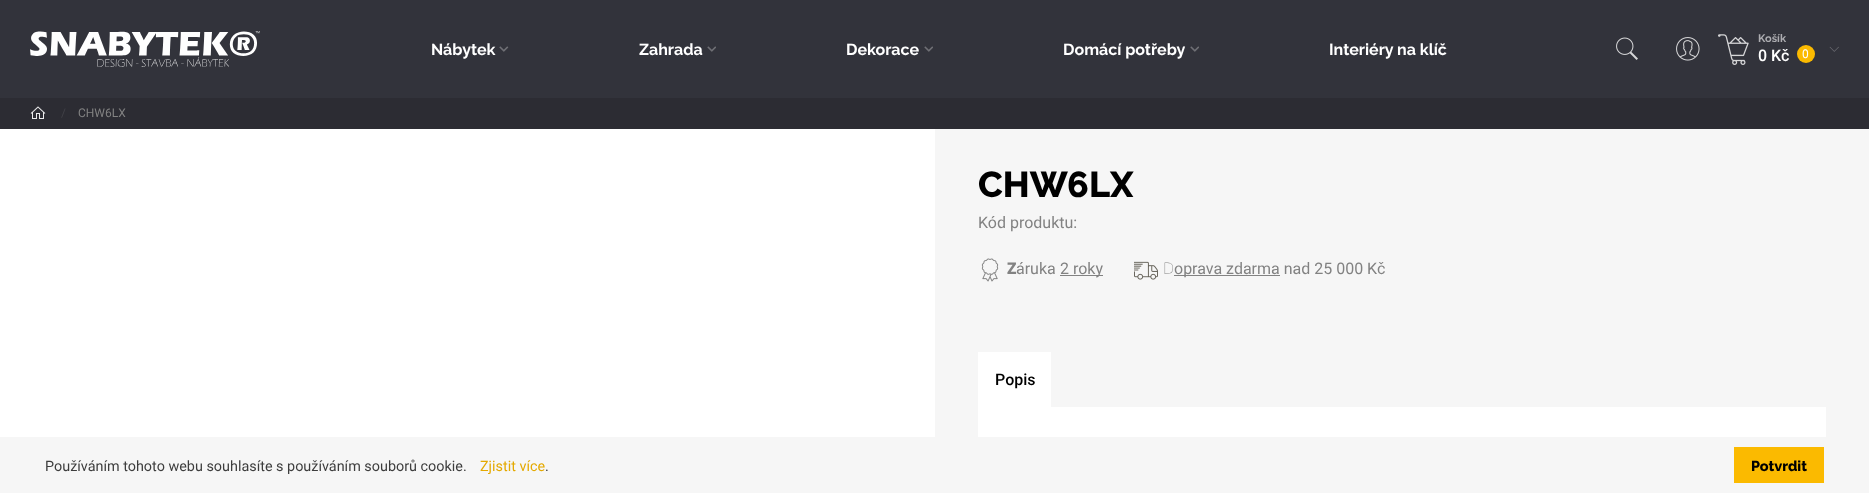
(async () => {
    const canvas = document.querySelector("canvas");
    canvas.width = 1869;
    canvas.height = 493;
    const context = canvas.getContext("2d");
    context.miterLimit = 4;
    context.fontKerning = "normal";
    function write(s, x, y, font, color) {
        context.font = font;
        context.fillStyle = color;
        context.fillText(s, x, y);
    }
    function block(x, y, w, h, color) {
        context.fillStyle = color;
        context.fillRect(x, y, w, h);
    }
    async function photo(src, x, y, w, h) {
        const img = new Image();
        img.src = src;
        await img.decode();
        context.drawImage(img, x, y, w, h);
    }

    block(0, 0, 1869, 493, "rgb(255, 255, 255)");
    block(0, 0, 1869, 98, "rgb(50, 51, 59)");
    await photo("media/1.png", 30, 31, 230, 36);
    write("Nábytek", 431, 55, "bold 16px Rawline", "rgb(255, 255, 255)");
    await photo("media/2.png", 499, 46, 10, 6);
    write("Zahrada", 639, 55, "bold 16px Rawline", "rgb(255, 255, 255)");
    await photo("media/3.png", 707, 46, 9, 6);
    write("Dekorace", 846, 55, "bold 16px Rawline", "rgb(255, 255, 255)");
    await photo("media/3.png", 924, 46, 9, 6);
    write("Domácí potřeby", 1063, 55, "bold 16px Rawline", "rgb(255, 255, 255)");
    await photo("media/3.png", 1190, 46, 9, 6);
    write("Interiéry na klíč", 1329, 55, "bold 16px Rawline", "rgb(255, 255, 255)");
    await photo("media/4.png", 1616, 37, 22, 23);
    await photo("media/5.png", 1676, 37, 24, 24);
    await photo("media/6.png", 1718, 34, 31, 31);
    write("Košík", 1758, 42, "bold 11px Rawline", "rgb(173, 173, 177)");
    write("0 Kč", 1758, 61, "500 16px Roboto", "rgb(255, 255, 255)");
    context.fillStyle = "rgb(251, 186, 0)";
    context.beginPath();
    context.arc(1806, 54, 9, 0, Math.PI * 2);
    context.fill();
    write("0", 1802, 58, "12px Roboto", "rgb(255, 255, 255)");
    await photo("media/7.png", 1829, 46, 10, 6);
    block(0, 98, 1869, 31, "rgb(44, 44, 51)");
    await photo("media/8.png", 30, 106, 16, 13);
    write("/", 61, 117, "12px Roboto", "rgb(65, 65, 71)");
    write("CHW6LX", 78, 117, "12px Roboto", "rgb(130, 130, 130)");
    block(935, 129, 934, 308, "rgb(246, 246, 246)");
    write("CHW6LX", 978, 197, "800 36px Rawline", "rgb(0, 0, 0)");
    write("Kód produktu:", 978, 228, "16px Roboto", "rgb(130, 130, 130)");
    await photo("media/9.png", 981, 258, 18, 24);
    write("Z", 1007, 274, "800 16px Noto Sans", "rgb(130, 130, 130)");
    write("áruka", 1016, 274, "16px Roboto", "rgb(130, 130, 130)");
    block(1060, 275, 43, 1, "rgb(130, 130, 130)");
    write("2 roky", 1060, 274, "16px Roboto", "rgb(130, 130, 130)");
    await photo("media/10.png", 1134, 261, 24, 19);
    write("D", 1163, 274, "100 16px Noto Sans", "rgb(130, 130, 130)");
    block(1174, 275, 106, 1, "rgb(130, 130, 130)");
    write("oprava zdarma nad 25 000 Kč", 1174, 274, "16px Roboto", "rgb(130, 130, 130)");
    block(978, 407, 848, 30, "rgb(255, 255, 255)");
    block(978, 352, 73, 55, "rgb(255, 255, 255)");
    write("Popis", 995, 385, "500 16px Roboto", "rgb(0, 0, 0)");
    block(0, 437, 1869, 56, "rgb(246, 246, 246)");
    write("Používáním tohoto webu souhlasíte s používáním souborů cookie.", 45, 471, "14.4px Roboto", "rgb(61, 61, 61)");
    write("Zjistit více", 480, 471, "14.4px Roboto", "rgb(228, 169, 0)");
    write(".", 545, 471, "14.4px Roboto", "rgb(61, 61, 61)");
    block(1734, 447, 90, 36, "rgb(251, 186, 0)");
    write("Potvrdit", 1751, 471, "800 14.4px Rawline", "rgb(0, 0, 0)");
})();
